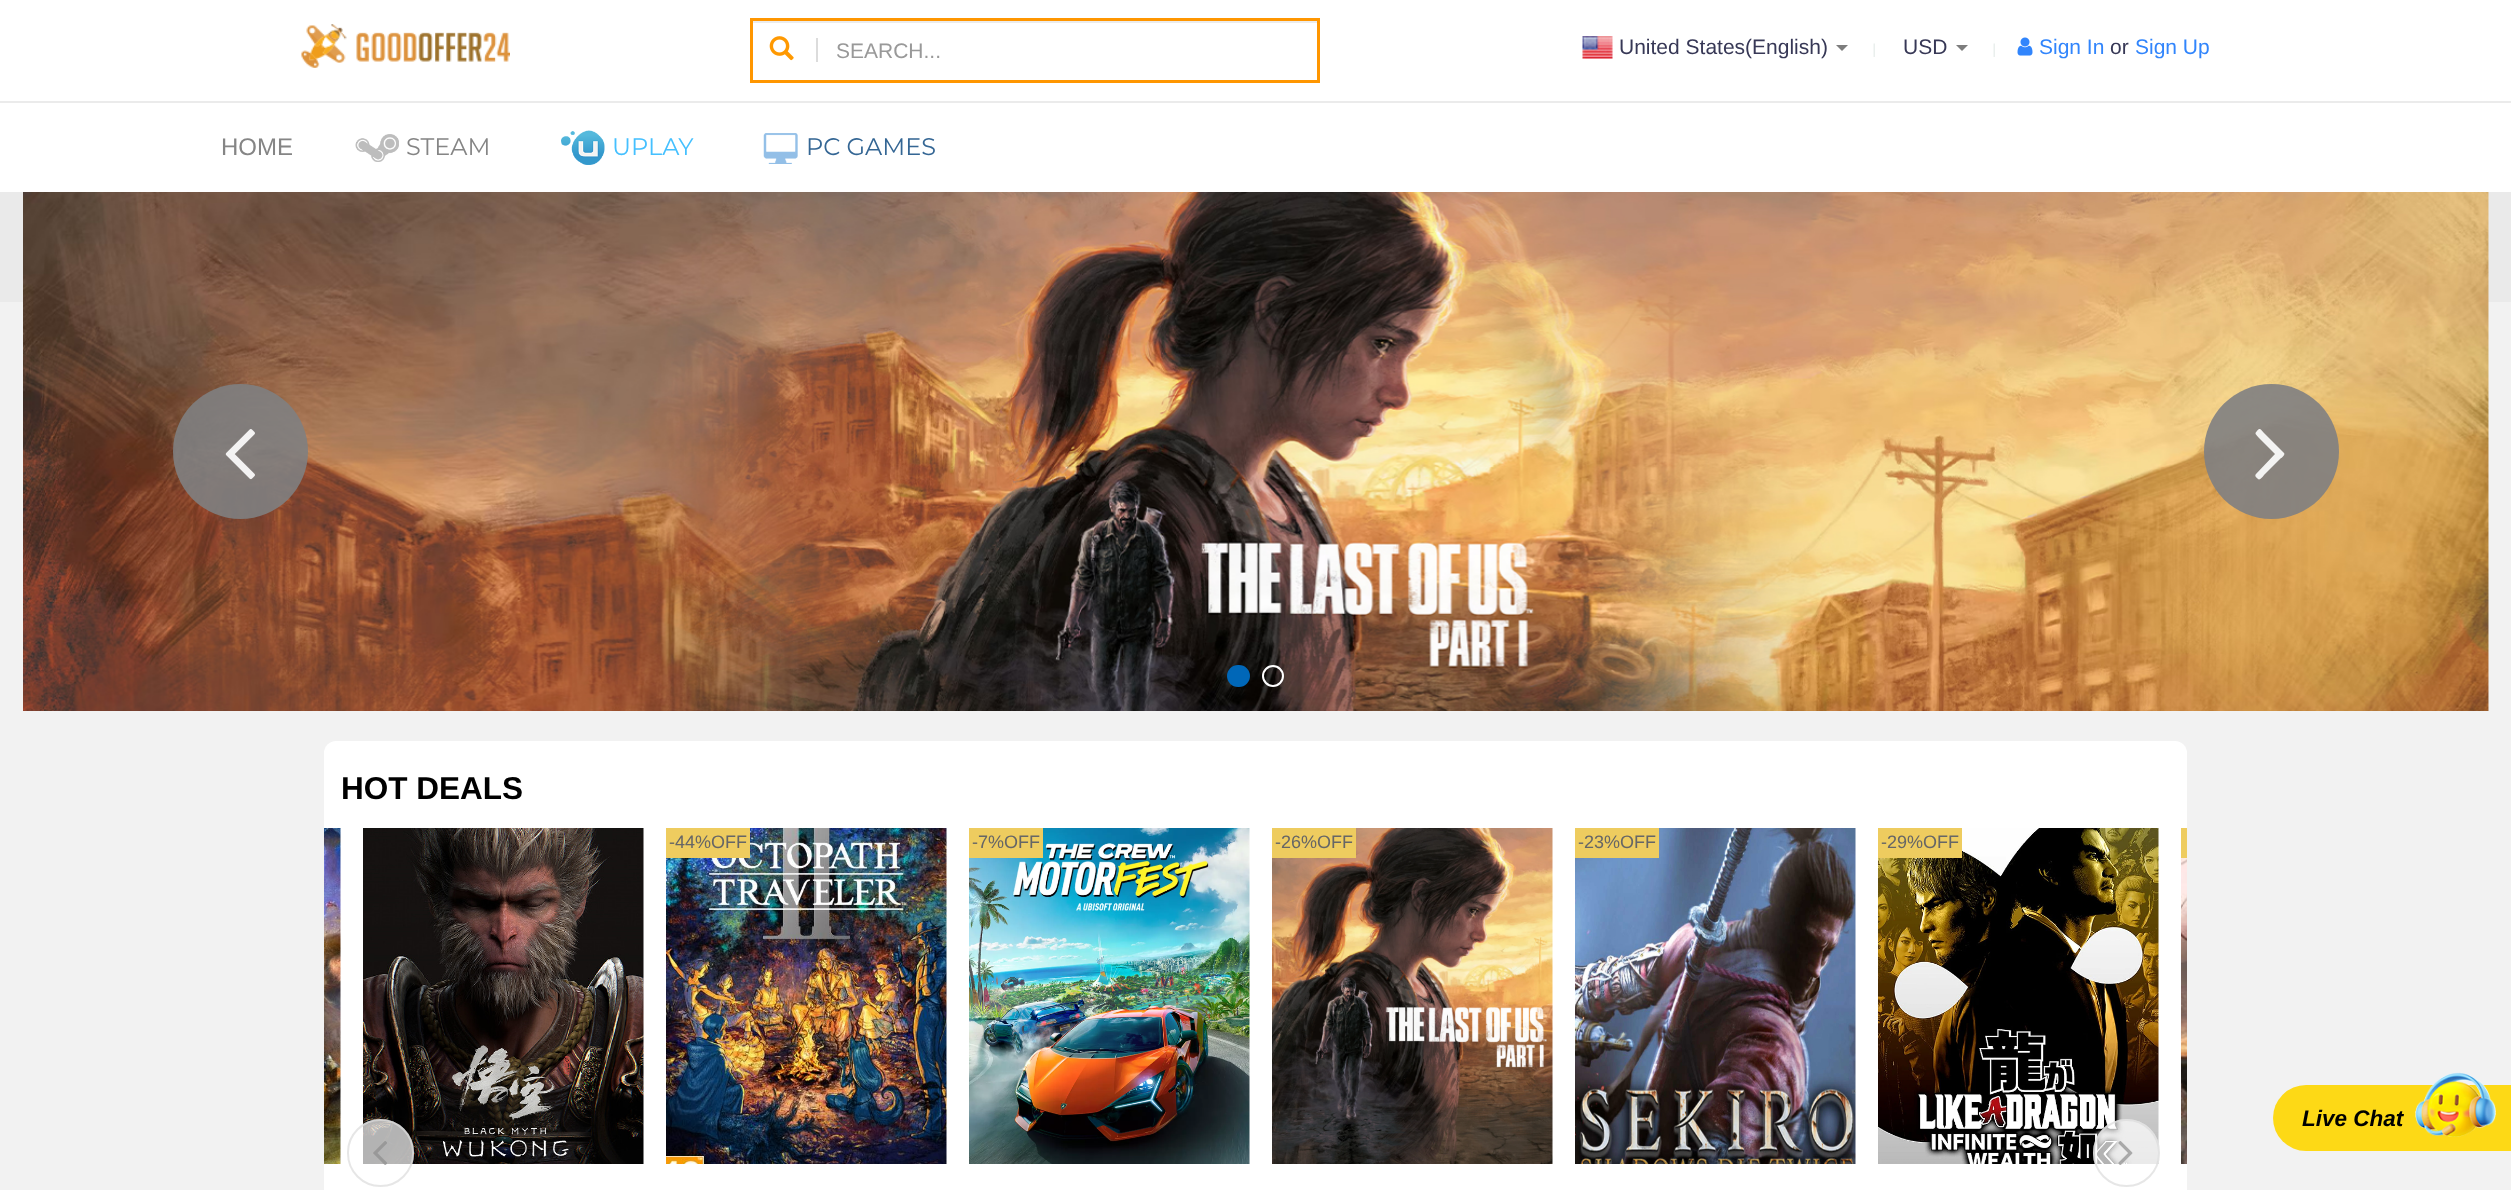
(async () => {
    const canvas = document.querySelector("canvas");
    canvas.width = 2511;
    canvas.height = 1190;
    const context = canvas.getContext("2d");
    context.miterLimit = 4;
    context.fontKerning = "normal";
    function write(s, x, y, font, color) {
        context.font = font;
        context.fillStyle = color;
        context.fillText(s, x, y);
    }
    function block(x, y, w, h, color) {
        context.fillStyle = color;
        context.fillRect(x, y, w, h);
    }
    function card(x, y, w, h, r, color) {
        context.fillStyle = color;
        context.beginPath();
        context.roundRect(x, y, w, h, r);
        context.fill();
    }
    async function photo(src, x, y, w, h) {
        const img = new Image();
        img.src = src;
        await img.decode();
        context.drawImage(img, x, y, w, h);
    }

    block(0, 0, 2511, 1190, "rgb(242, 242, 242)");
    block(0, 0, 2511, 192, "rgb(255, 255, 255)");
    await photo("media/1.png", 301, 24, 209, 44);
    block(753, 21, 564, 2, "rgb(236, 236, 236)");
    context.strokeStyle = "rgb(255, 150, 0)";
    context.lineWidth = 3;
    context.strokeRect(751.5, 19.5, 567, 62);
    block(816, 38, 2, 24, "rgb(220, 220, 220)");
    await photo("media/2.png", 769, 36, 25, 25);
    write("SEARCH...", 836, 58, "21px Liberation Sans", "rgb(153, 153, 153)");
    await photo("media/3.png", 1873, 43, 2, 14);
    await photo("media/4.png", 1582, 36, 31, 23);
    write("United States(English)", 1619, 54, "21px Liberation Sans", "rgb(55, 56, 86)");
    context.fillStyle = "rgb(125, 125, 125)";
    context.beginPath();
    context.moveTo(1836, 45);
    context.lineTo(1848, 45);
    context.lineTo(1842, 51);
    context.closePath();
    context.fill();
    await photo("media/3.png", 1993, 43, 2, 14);
    write("USD", 1903, 54, "21px Liberation Sans", "rgb(55, 56, 86)");
    context.fillStyle = "rgb(125, 125, 125)";
    context.beginPath();
    context.moveTo(1956, 45);
    context.lineTo(1968, 45);
    context.lineTo(1962, 51);
    context.closePath();
    context.fill();
    await photo("media/5.png", 2017, 37, 16, 19);
    write("Sign In", 2039, 54, "21px Liberation Sans", "rgb(49, 133, 252)");
    write("or", 2110, 54, "21px Liberation Sans", "rgb(55, 56, 86)");
    write("Sign Up", 2135, 54, "21px Liberation Sans", "rgb(49, 133, 252)");
    block(0, 101, 2511, 2, "rgb(235, 235, 235)");
    write("HOME", 221, 155, "24px Liberation Sans", "rgb(133, 133, 133)");
    await photo("media/6.png", 355, 134, 44, 28);
    write("STEAM", 406, 155, "24px Montserrat", "rgb(133, 133, 133)");
    await photo("media/7.png", 561, 130, 44, 35);
    write("UPLAY", 612, 155, "24px Montserrat", "rgb(69, 192, 255)");
    await photo("media/8.png", 763, 133, 35, 31);
    write("PC GAMES", 806, 155, "24px Montserrat", "rgb(52, 102, 148)");
    block(0, 192, 2511, 110, "rgb(234, 234, 234)");
    await photo("media/9.png", 23, 192, 2466, 519);
    context.fillStyle = "rgba(128, 128, 129, 0.9)";
    context.beginPath();
    context.arc(240.5, 451.5, 67.5, 0, Math.PI * 2);
    context.fill();
    await photo("media/10.png", 225, 429, 30, 51);
    context.fillStyle = "rgba(128, 128, 130, 0.9)";
    context.beginPath();
    context.arc(2271.5, 451.5, 67.5, 0, Math.PI * 2);
    context.fill();
    context.fillStyle = "rgba(255, 255, 255, 0.9)";
    context.beginPath();
    context.moveTo(2284, 453);
    context.bezierCurveTo(2286, 455, 2280, 459, 2280, 459);
    context.lineTo(2264, 475);
    context.bezierCurveTo(2264, 475, 2260, 481, 2258, 479);
    context.bezierCurveTo(2257, 478, 2254, 476, 2256, 474);
    context.lineTo(2275, 454);
    context.lineTo(2259, 438);
    context.bezierCurveTo(2256, 434, 2254, 434, 2257, 431);
    context.bezierCurveTo(2260, 427, 2261, 430, 2264, 433);
    context.closePath();
    context.fill();
    context.fillStyle = "rgb(0, 103, 184)";
    context.beginPath();
    context.roundRect(1228, 666, 21, 20, 10);
    context.fill();
    context.strokeStyle = "rgb(0, 103, 184)";
    context.lineWidth = 2;
    context.stroke();
    context.beginPath();
    context.arc(1273, 676, 10, 0, Math.PI * 2);
    context.strokeStyle = "rgb(255, 255, 255)";
    context.stroke();
    card(324, 741, 1863, 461, 12, "rgb(255, 255, 255)");
    write("HOT DEALS", 341, 799, "bold 31.5px Liberation Sans", "rgb(0, 0, 0)");
    await photo("media/11.png", 324, 828, 17, 336);
    await photo("media/12.png", 363, 828, 281, 336);
    await photo("media/13.png", 666, 828, 281, 336);
    block(666, 828, 84, 30, "rgb(238, 204, 95)");
    write("-44%OFF", 669, 848, "18px Liberation Sans", "rgb(102, 102, 102)");
    await photo("media/14.png", 969, 828, 281, 336);
    block(969, 828, 74, 30, "rgb(238, 204, 95)");
    write("-7%OFF", 972, 848, "18px Liberation Sans", "rgb(102, 102, 102)");
    await photo("media/15.png", 1272, 828, 281, 336);
    block(1272, 828, 84, 30, "rgb(238, 204, 95)");
    write("-26%OFF", 1275, 848, "18px Liberation Sans", "rgb(102, 102, 102)");
    await photo("media/16.png", 1575, 828, 281, 336);
    block(1575, 828, 84, 30, "rgb(238, 204, 95)");
    write("-23%OFF", 1578, 848, "18px Liberation Sans", "rgb(102, 102, 102)");
    await photo("media/17.png", 1878, 828, 281, 336);
    block(1878, 828, 84, 30, "rgb(238, 204, 95)");
    write("-29%OFF", 1881, 848, "18px Liberation Sans", "rgb(102, 102, 102)");
    block(2181, 828, 6, 30, "rgb(238, 204, 95)");
    await photo("media/18.png", 2181, 858, 6, 306);
    card(347, 1119, 67, 68, 33.5, "rgba(255, 255, 255, 0.7)");
    context.beginPath();
    context.roundRect(348, 1120, 65, 66, 32.5);
    context.strokeStyle = "rgba(219, 219, 219, 0.7)";
    context.stroke();
    await photo("media/19.png", 373, 1141, 14, 24);
    card(2093, 1119, 67, 68, 33.5, "rgba(255, 255, 255, 0.7)");
    context.beginPath();
    context.roundRect(2094, 1120, 65, 66, 32.5);
    context.stroke();
    await photo("media/20.png", 2118, 1141, 15, 24);
    context.fillStyle = "rgb(253, 217, 22)";
    context.beginPath();
    context.roundRect(2273, 1085, 238, 66, [33, 0, 0, 33]);
    context.fill();
    write("Live Chat", 2302, 1126, "italic bold 22.5px Liberation Sans", "rgb(0, 0, 0)");
    await photo("media/21.png", 2415, 1072, 81, 65);
})();
